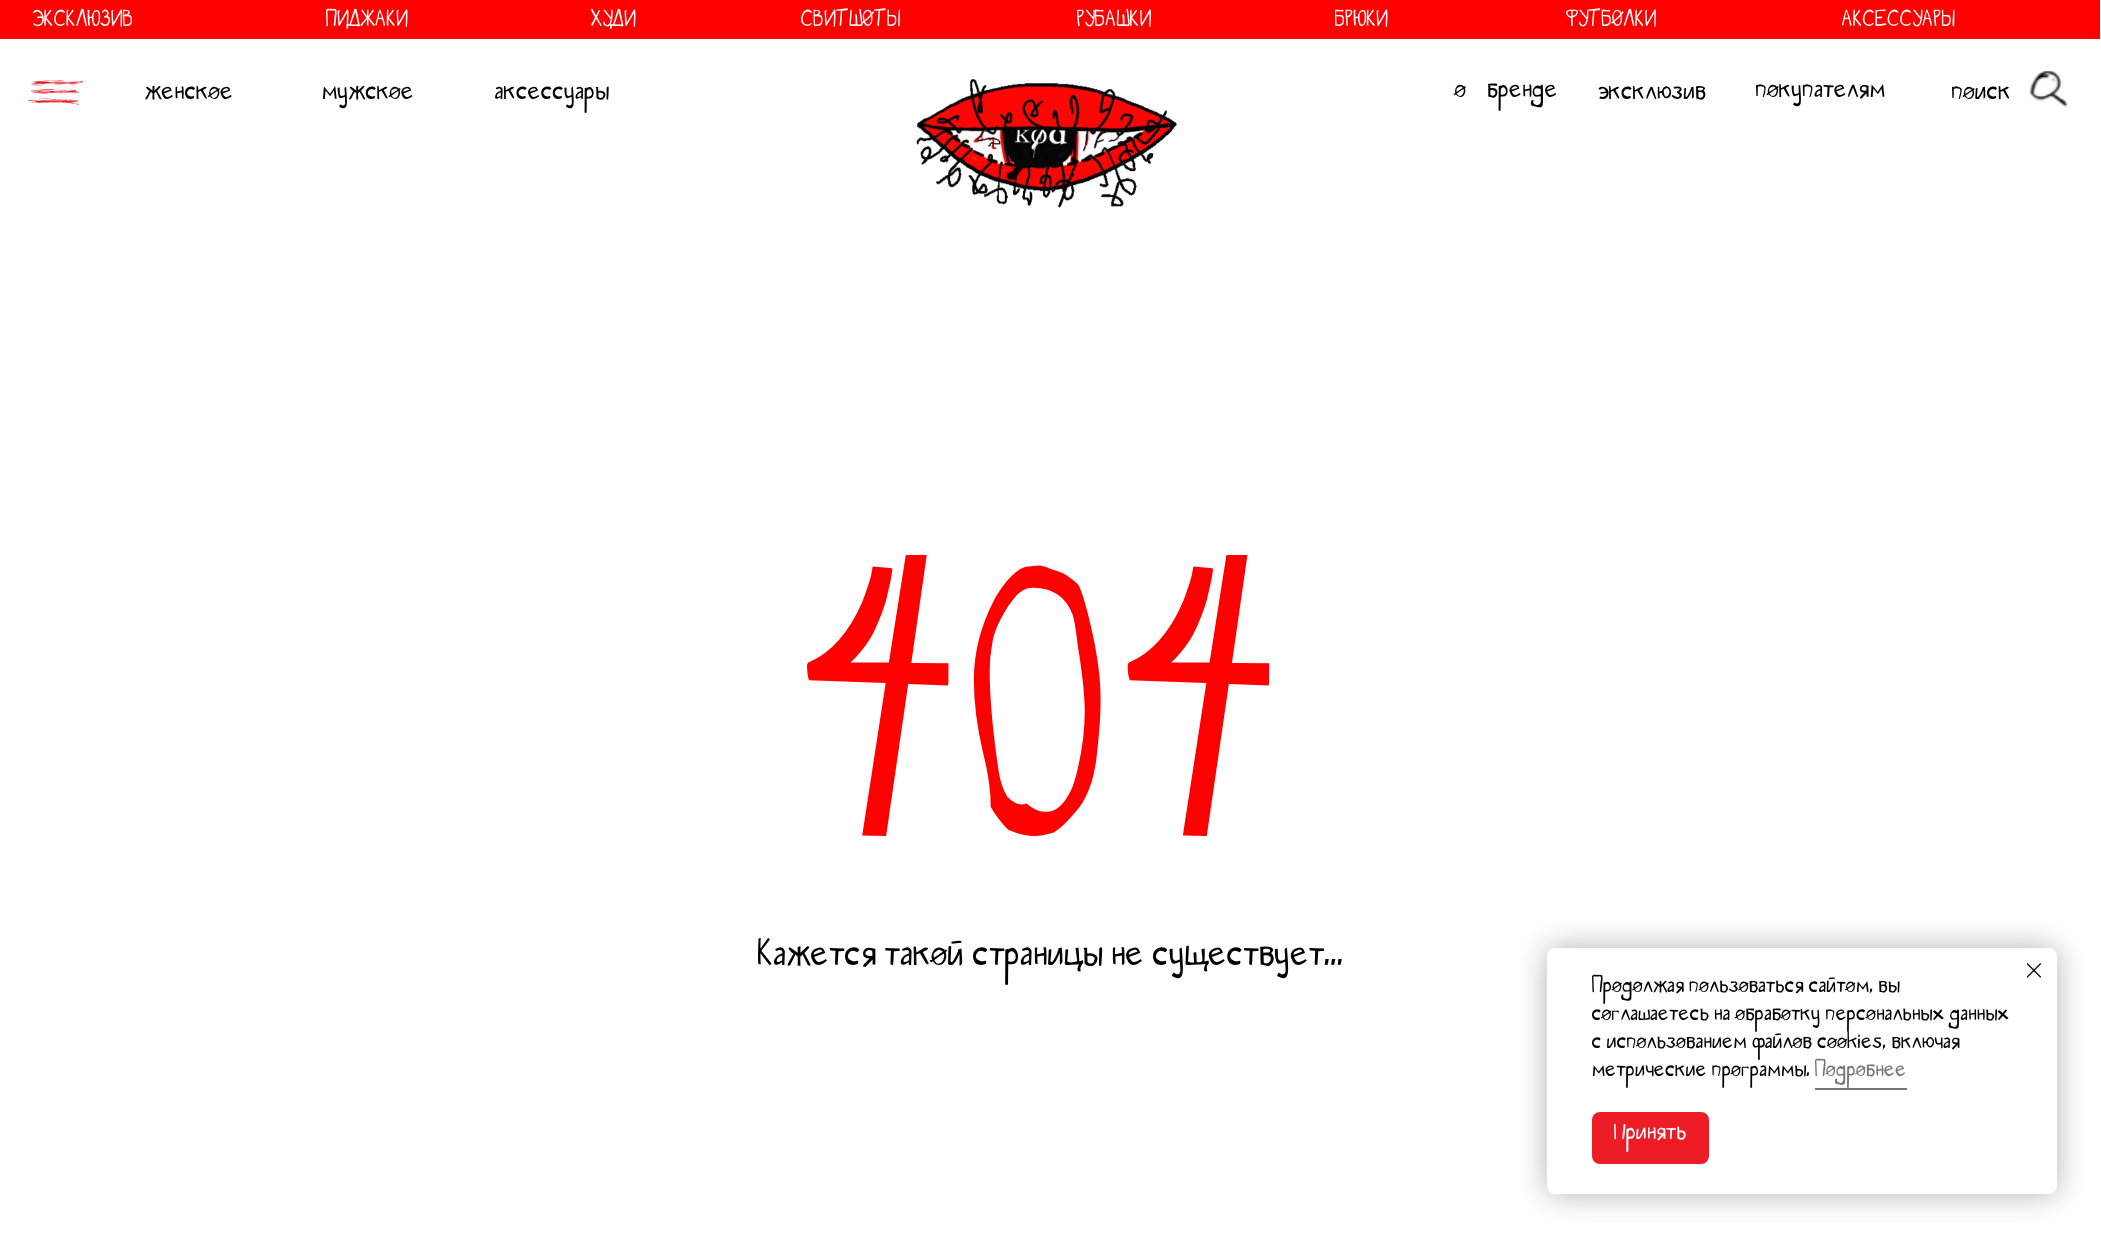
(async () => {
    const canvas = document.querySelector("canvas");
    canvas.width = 2101;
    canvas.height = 1239;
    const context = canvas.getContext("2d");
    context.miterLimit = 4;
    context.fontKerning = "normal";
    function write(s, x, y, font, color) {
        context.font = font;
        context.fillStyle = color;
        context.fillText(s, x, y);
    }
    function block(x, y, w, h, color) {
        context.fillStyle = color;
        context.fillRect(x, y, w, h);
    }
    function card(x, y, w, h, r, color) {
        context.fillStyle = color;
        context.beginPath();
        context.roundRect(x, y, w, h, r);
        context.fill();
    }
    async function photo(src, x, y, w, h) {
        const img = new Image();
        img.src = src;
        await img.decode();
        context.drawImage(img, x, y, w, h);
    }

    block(0, 0, 2101, 1239, "rgb(255, 255, 255)");
    block(0, 0, 2100, 39, "rgb(255, 0, 0)");
    write("ЭКСКЛЮЗИВ", 32, 26, "18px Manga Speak", "rgb(255, 255, 255)");
    write("ПИДЖАКИ", 326, 26, "18px Manga Speak", "rgb(255, 255, 255)");
    write("ХУДИ", 591, 26, "18px Manga Speak", "rgb(255, 255, 255)");
    write("СВИТШОТЫ", 801, 26, "18px Manga Speak", "rgb(255, 255, 255)");
    write("РУБАШКИ", 1077, 26, "18px Manga Speak", "rgb(255, 255, 255)");
    write("БРЮКИ", 1335, 26, "18px Manga Speak", "rgb(255, 255, 255)");
    write("ФУТБОЛКИ", 1565, 26, "18px Manga Speak", "rgb(255, 255, 255)");
    write("АКСЕССУАРЫ", 1842, 26, "18px Manga Speak", "rgb(255, 255, 255)");
    await photo("media/1.png", 27, 80, 57, 25);
    write("женское", 145, 99, "21px Manga Speak", "rgb(0, 0, 0)");
    write("мужское", 322, 99, "21px Manga Speak", "rgb(0, 0, 0)");
    write("аксессуары", 495, 99, "21px Manga Speak", "rgb(0, 0, 0)");
    await photo("media/2.png", 916, 79, 261, 129);
    context.wordSpacing = "15px";
    write("о бренде", 1455, 97, "21px Manga Speak", "rgb(0, 0, 0)");
    context.wordSpacing = "0px";
    write("эксклюзив", 1598, 99, "21px Manga Speak", "rgb(0, 0, 0)");
    write("покупателям", 1756, 97, "21px Manga Speak", "rgb(0, 0, 0)");
    write("поиск", 1952, 99, "21px Manga Speak", "rgb(0, 0, 0)");
    await photo("media/3.png", 2029, 69, 39, 38);
    context.fillStyle = "rgba(0, 0, 0, 0.3)";
    context.filter = "blur(15px)";
    context.beginPath();
    context.roundRect(1547, 948, 510, 246, 8);
    context.fill();
    context.filter = "none";
    card(1547, 948, 510, 246, 8, "rgb(255, 255, 255)");
    await photo("media/4.png", 2027, 963, 15, 15);
    write("Продолжая пользоваться сайтом, вы", 1592, 992, "18px Manga Speak", "rgb(0, 0, 0)");
    write("соглашаетесь на обработку персональных данных", 1592, 1020, "18px Manga Speak", "rgb(0, 0, 0)");
    write("с использованием файлов cookies, включая", 1592, 1048, "18px Manga Speak", "rgb(0, 0, 0)");
    write("метрические программы.", 1592, 1076, "18px Manga Speak", "rgb(0, 0, 0)");
    write("Подробнее", 1815, 1076, "18px Manga Speak", "rgb(117, 117, 117)");
    block(1815, 1088, 92, 2, "rgb(117, 117, 117)");
    card(1592, 1112, 117, 52, 8, "rgb(238, 28, 37)");
    context.save();
    context.beginPath();
    context.rect(1614, 1124, 72, 28);
    context.clip();
    write("Принять", 1614, 1139, "19.5px Manga Speak", "rgb(255, 255, 255)");
    context.restore();
    write("404", 807, 836, "300px Manga Speak", "rgb(255, 0, 0)");
    write("Кажется такой страницы не существует...", 758, 965, "30px Manga Speak", "rgb(0, 0, 0)");
})();
